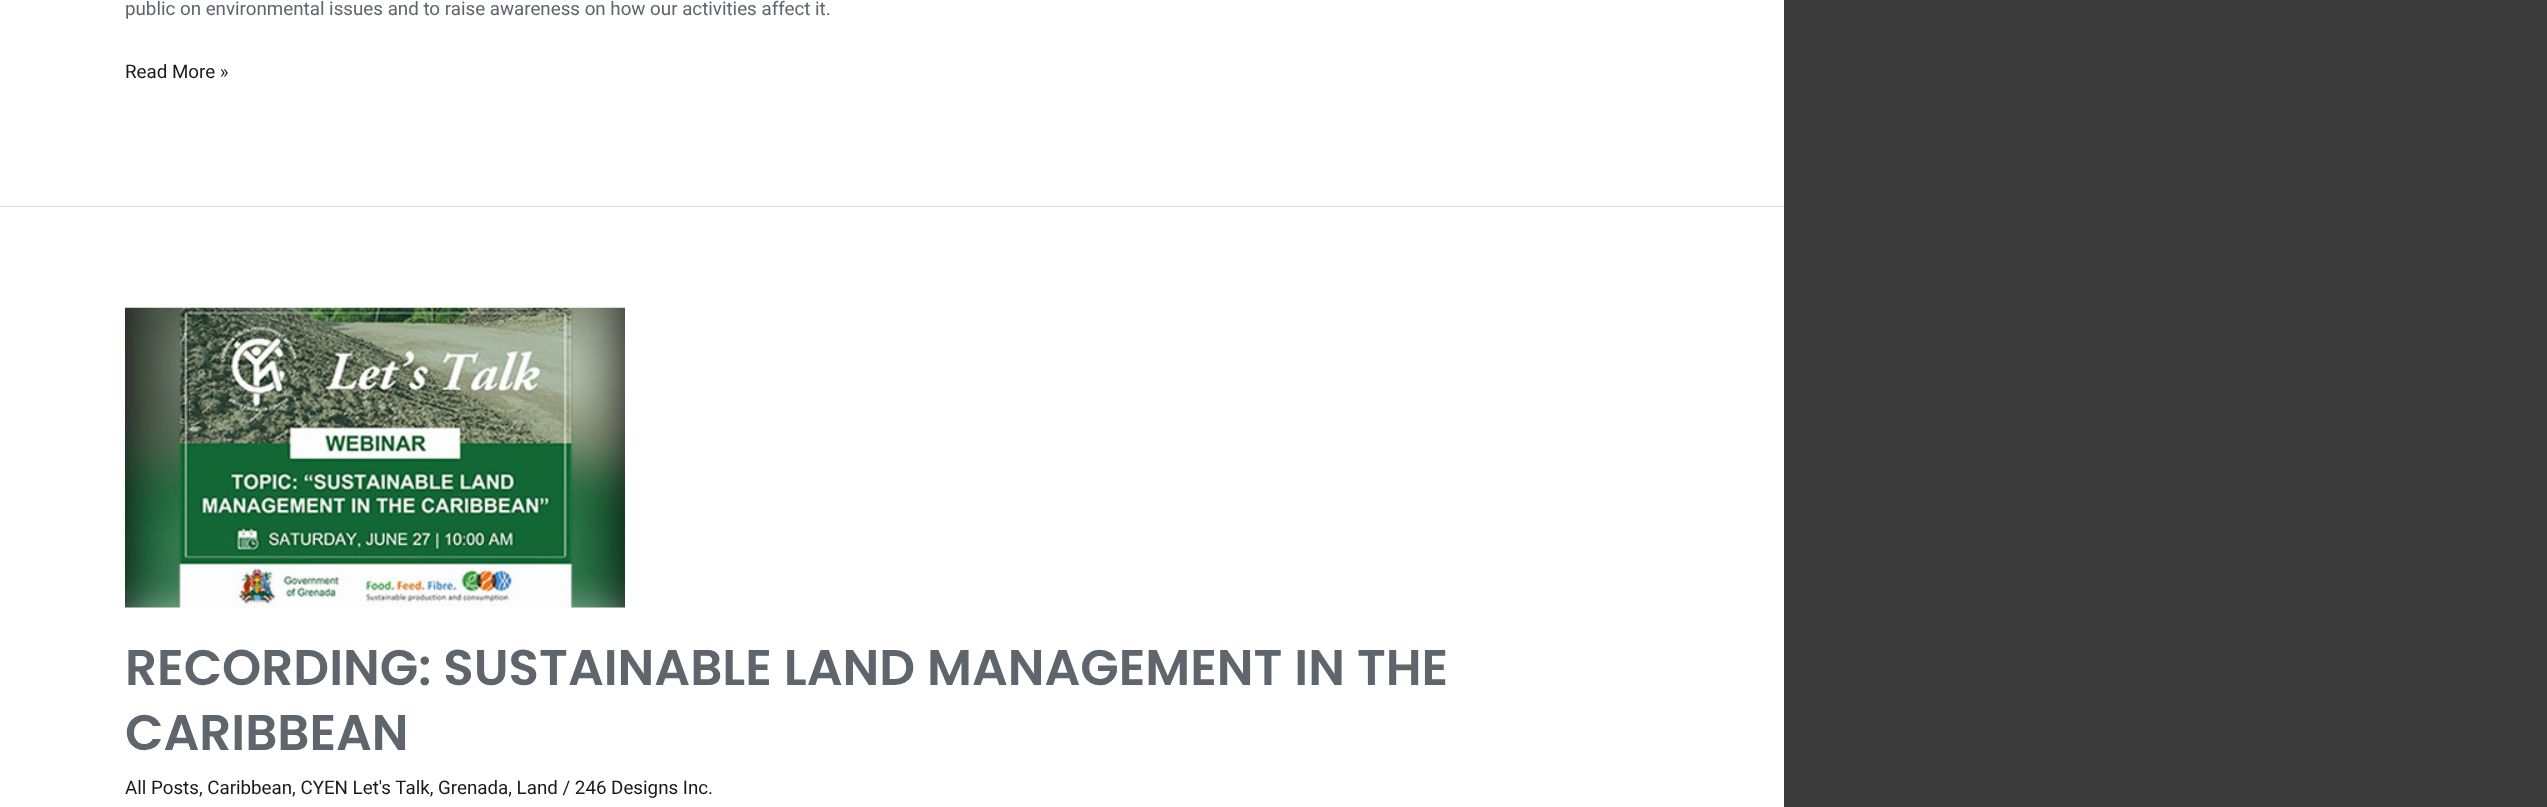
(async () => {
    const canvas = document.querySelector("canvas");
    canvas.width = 2547;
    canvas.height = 807;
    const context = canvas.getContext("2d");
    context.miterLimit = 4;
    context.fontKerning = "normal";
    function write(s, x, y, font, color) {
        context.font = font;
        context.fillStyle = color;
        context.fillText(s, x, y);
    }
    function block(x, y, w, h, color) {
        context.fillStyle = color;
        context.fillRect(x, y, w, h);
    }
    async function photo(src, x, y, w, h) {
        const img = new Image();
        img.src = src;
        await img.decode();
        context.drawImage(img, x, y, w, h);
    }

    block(0, 0, 2547, 807, "rgb(58, 58, 58)");
    block(0, 0, 1784, 807, "rgb(255, 255, 255)");
    block(0, 206, 1784, 1, "rgb(221, 221, 221)");
    write("public on environmental issues and to raise awareness on how our activities affect it.", 125, 15, "18.75px Roboto", "rgb(95, 101, 108)");
    write("Read More »", 125, 78, "18.75px Roboto", "rgb(26, 26, 26)");
    await photo("media/1.png", 125, 307, 500, 301);
    write("RECORDING: SUSTAINABLE LAND MANAGEMENT IN THE", 125, 685, "600 50px Poppins", "rgb(95, 101, 108)");
    write("CARIBBEAN", 125, 750, "600 50px Poppins", "rgb(95, 101, 108)");
    write("All Posts, Caribbean, CYEN Let's Talk, Grenada, Land / 246 Designs Inc.", 125, 794, "18.75px Roboto", "rgb(26, 26, 26)");
})();
